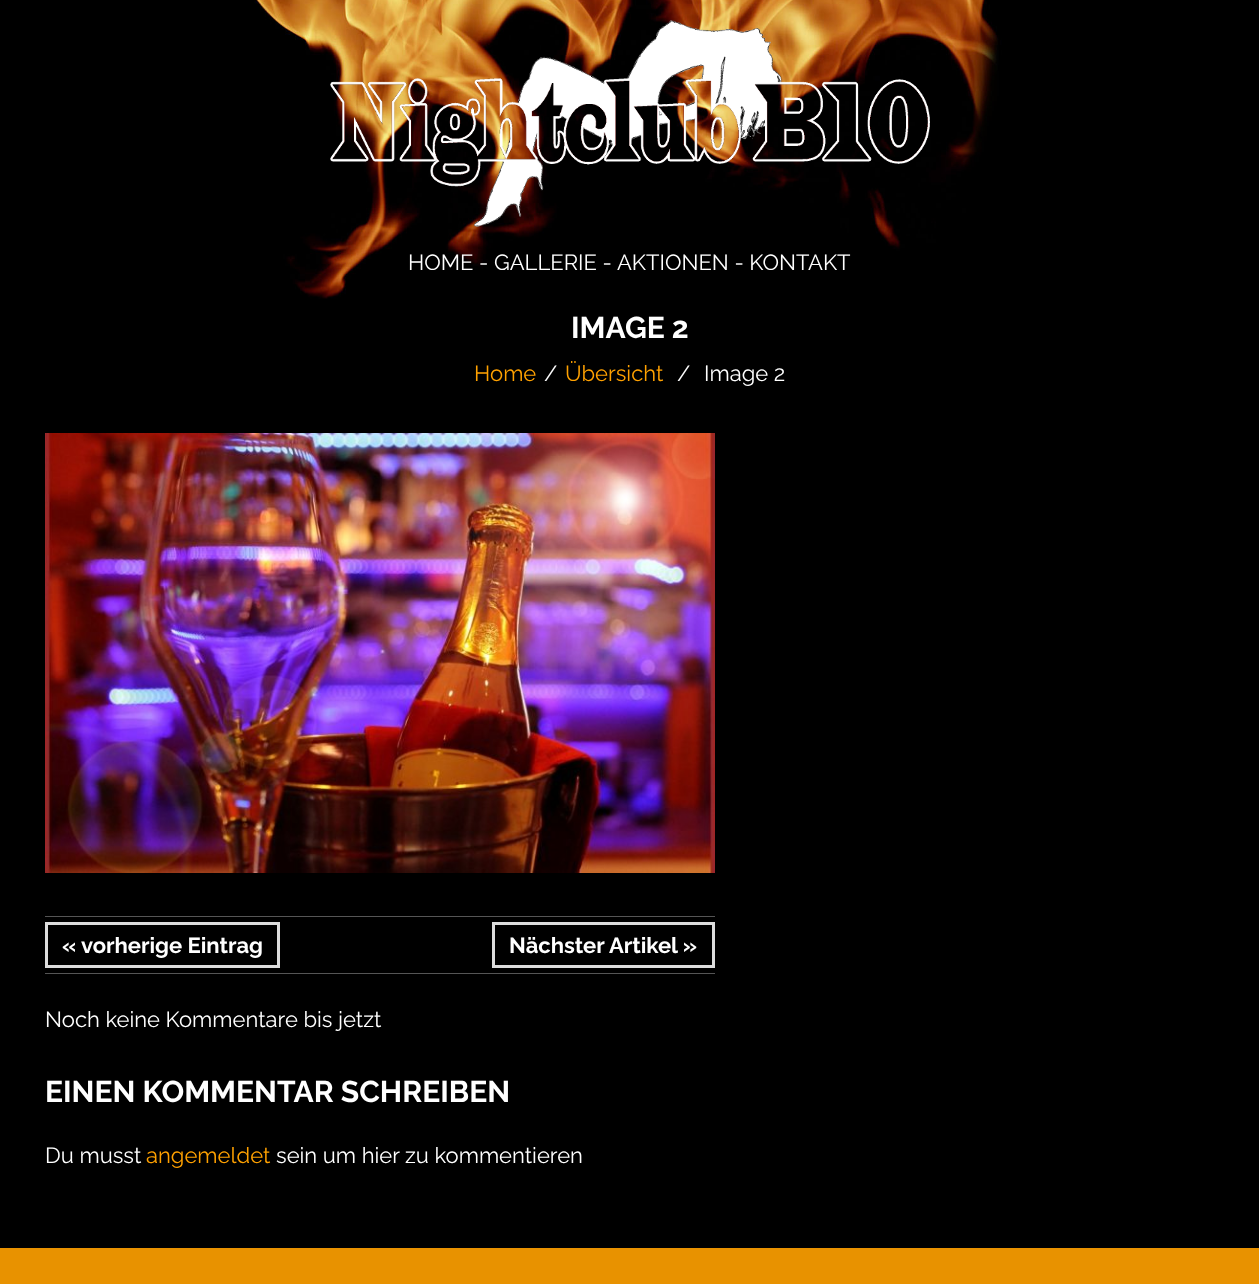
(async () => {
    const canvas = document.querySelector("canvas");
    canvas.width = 1259;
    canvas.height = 1284;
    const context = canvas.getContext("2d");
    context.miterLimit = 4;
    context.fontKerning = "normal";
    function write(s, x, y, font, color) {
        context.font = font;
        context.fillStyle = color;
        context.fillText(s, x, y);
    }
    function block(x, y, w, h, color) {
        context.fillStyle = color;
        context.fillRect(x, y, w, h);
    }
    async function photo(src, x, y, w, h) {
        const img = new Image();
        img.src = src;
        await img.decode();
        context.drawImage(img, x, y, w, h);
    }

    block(0, 0, 1259, 1284, "rgb(232, 146, 0)");
    await photo("media/1.png", 0, 0, 1259, 299);
    await photo("media/2.png", 330, 20, 600, 207);
    write("HOME - GALLERIE -", 408, 270, "22px Raleway", "rgb(255, 255, 255)");
    write("AKTIONEN - KONTAKT", 617, 270, "22px Raleway", "rgb(255, 255, 255)");
    block(0, 299, 1259, 949, "rgb(0, 0, 0)");
    write("IMAGE 2", 571, 338, "bold 30px Raleway", "rgb(255, 255, 255)");
    write("Home", 474, 381, "22px Raleway", "rgb(255, 161, 0)");
    write("/", 544, 381, "22px Raleway", "rgb(255, 255, 255)");
    write("Übersicht", 565, 381, "22px Raleway", "rgb(255, 161, 0)");
    write("/", 677, 381, "22px Raleway", "rgb(255, 255, 255)");
    write("Image 2", 704, 381, "22px Raleway", "rgb(255, 255, 255)");
    await photo("media/3.png", 45, 433, 670, 440);
    block(45, 916, 670, 1, "rgb(85, 85, 85)");
    block(45, 973, 670, 1, "rgb(85, 85, 85)");
    context.strokeStyle = "rgb(221, 221, 221)";
    context.lineWidth = 3;
    context.strokeRect(46.5, 923.5, 232, 43);
    write("« vorherige Eintrag", 62, 953, "bold 22px Raleway", "rgb(255, 255, 255)");
    context.strokeRect(493.5, 923.5, 220, 43);
    write("Nächster Artikel »", 509, 953, "bold 22px Raleway", "rgb(255, 255, 255)");
    write("Noch keine Kommentare bis jetzt", 45, 1027, "22px Raleway", "rgb(255, 255, 255)");
    write("EINEN KOMMENTAR SCHREIBEN", 45, 1102, "bold 30px Raleway", "rgb(255, 255, 255)");
    write("Du musst", 45, 1163, "22px Raleway", "rgb(255, 255, 255)");
    write("angemeldet", 146, 1163, "22px Raleway", "rgb(255, 161, 0)");
    write("sein um hier zu kommentieren", 276, 1163, "22px Raleway", "rgb(255, 255, 255)");
})();
